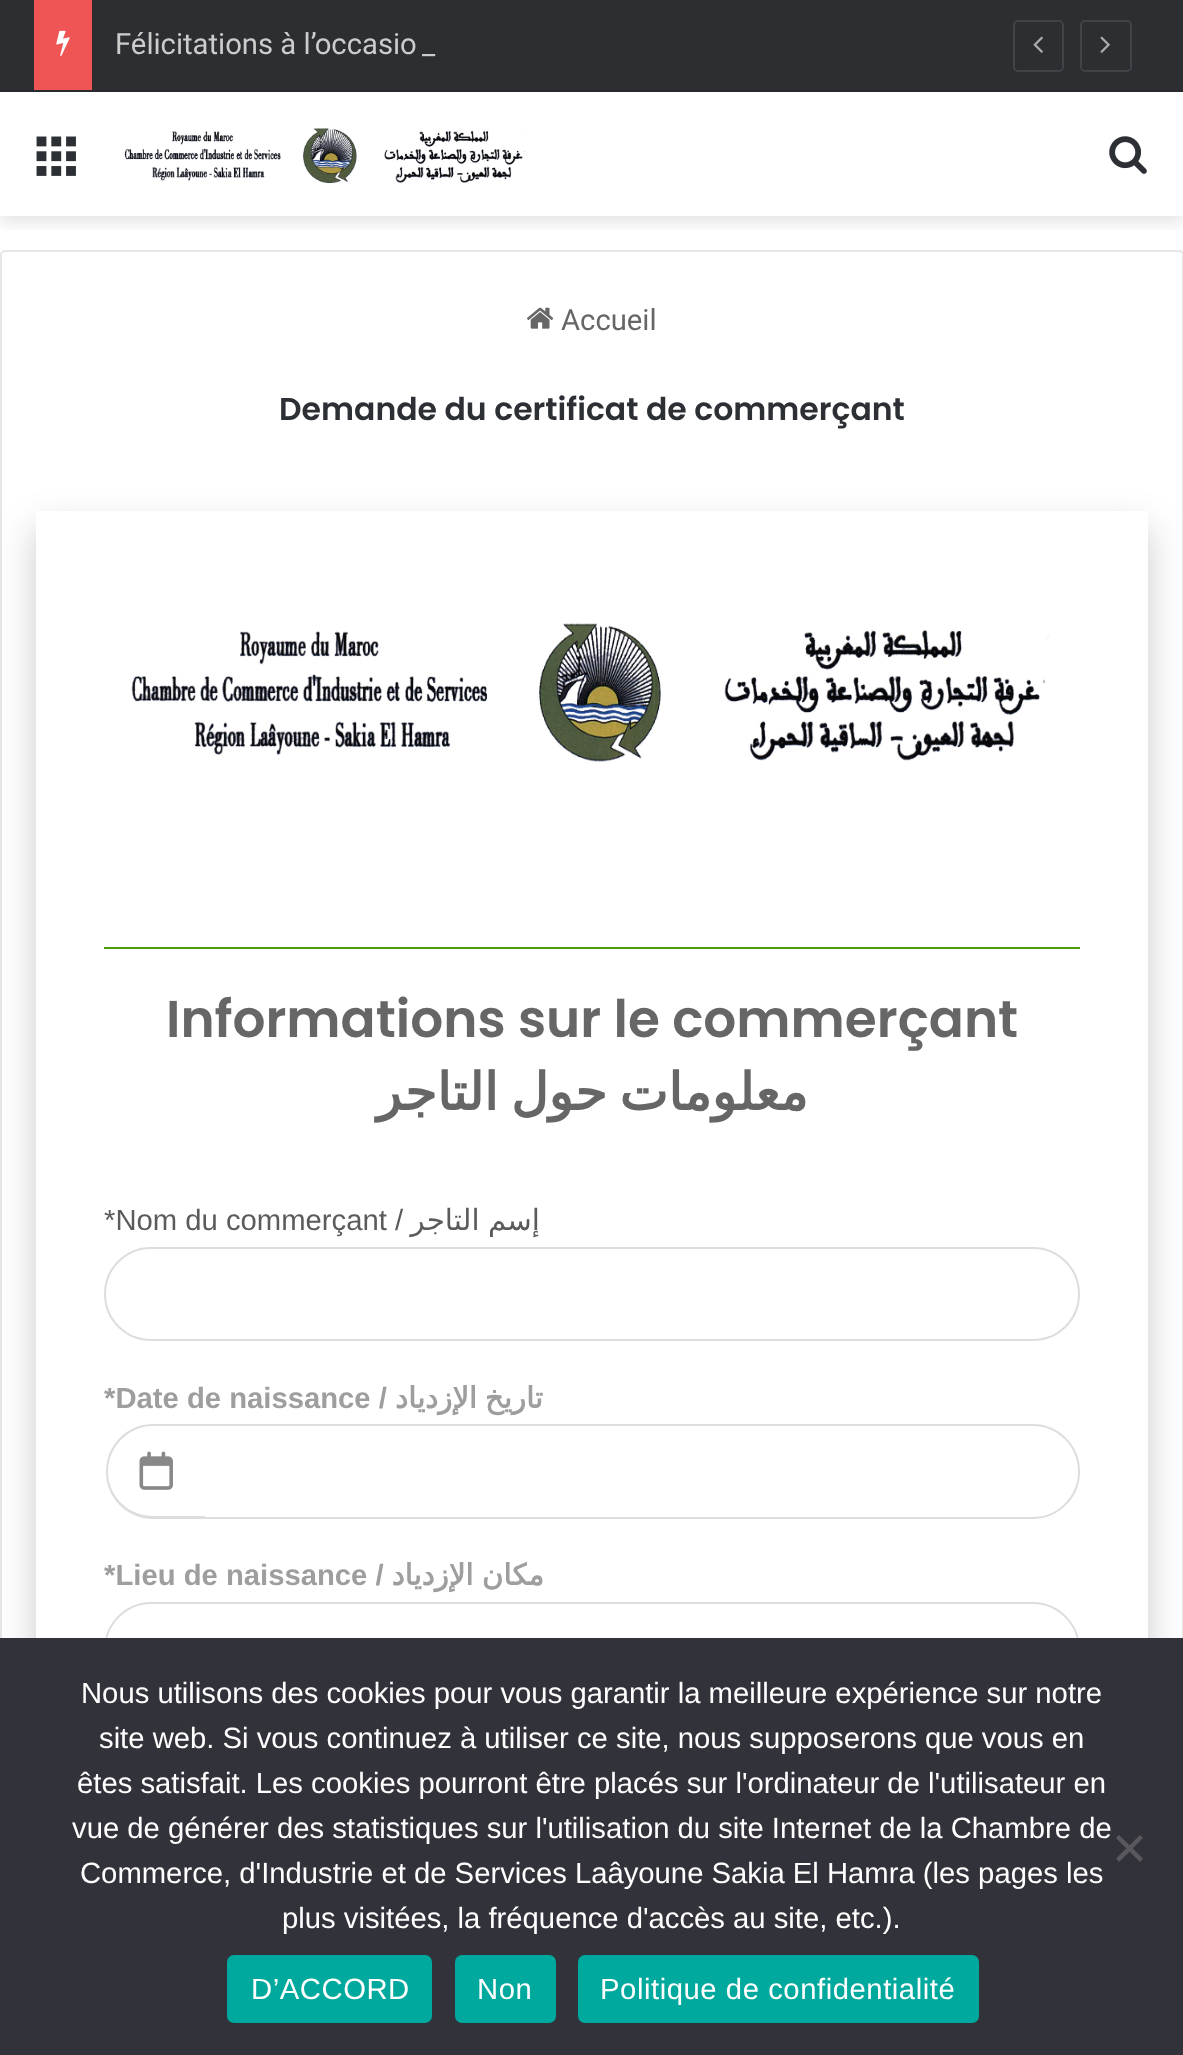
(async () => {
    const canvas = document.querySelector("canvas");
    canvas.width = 1183;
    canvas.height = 2055;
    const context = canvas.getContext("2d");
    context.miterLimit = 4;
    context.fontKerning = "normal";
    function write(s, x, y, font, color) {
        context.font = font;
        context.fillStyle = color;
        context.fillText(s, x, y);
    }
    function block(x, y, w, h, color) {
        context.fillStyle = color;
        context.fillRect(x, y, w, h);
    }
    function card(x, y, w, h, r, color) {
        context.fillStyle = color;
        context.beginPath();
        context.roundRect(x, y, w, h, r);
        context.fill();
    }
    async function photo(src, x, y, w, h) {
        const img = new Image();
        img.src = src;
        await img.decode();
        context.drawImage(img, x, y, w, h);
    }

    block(0, 0, 1183, 2055, "rgb(255, 255, 255)");
    context.save();
    context.beginPath();
    context.rect(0, 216, 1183, 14);
    context.clip();
    context.fillStyle = "rgba(0, 0, 0, 0.1)";
    context.filter = "blur(8px)";
    context.beginPath();
    context.rect(0, 99, 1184, 124);
    context.fill();
    context.filter = "none";
    context.restore();
    block(0, 0, 1183, 90, "rgb(44, 46, 50)");
    block(0, 90, 1183, 2, "rgb(40, 41, 45)");
    block(34, 0, 58, 90, "rgb(240, 85, 85)");
    await photo("media/1.png", 56, 30, 14, 26);
    write("Félicitations à l’occasio", 115, 54, "29.25px Roboto", "rgb(204, 204, 204)");
    write("_", 422, 54, "29.25px Roboto", "rgb(204, 204, 204)");
    context.beginPath();
    context.roundRect(1014, 21, 49, 50, 4);
    context.strokeStyle = "rgb(65, 67, 71)";
    context.lineWidth = 2;
    context.stroke();
    await photo("media/2.png", 1033, 36, 10, 17);
    context.beginPath();
    context.roundRect(1081, 21, 50, 50, 4);
    context.stroke();
    await photo("media/3.png", 1100, 36, 10, 17);
    await photo("media/4.png", 36, 136, 40, 40);
    await photo("media/5.png", 124, 128, 403, 56);
    await photo("media/6.png", 1109, 136, 38, 38);
    context.beginPath();
    context.roundRect(1, 251, 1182, 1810, 4);
    context.strokeStyle = "rgb(230, 230, 230)";
    context.stroke();
    await photo("media/7.png", 527, 307, 27, 22);
    write("Accueil", 561, 330, "29.25px Roboto", "rgb(102, 102, 102)");
    write("Demande du certificat de commerçant", 279, 420, "600 31.5px Poppins", "rgb(44, 47, 52)");
    context.fillStyle = "rgba(0, 0, 0, 0.2)";
    context.filter = "blur(18px)";
    context.beginPath();
    context.rect(36, 527, 1112, 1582);
    context.fill();
    context.filter = "none";
    block(36, 511, 1112, 1127, "rgb(255, 255, 255)");
    await photo("media/8.png", 131, 623, 918, 139);
    block(104, 947, 976, 2, "rgb(76, 157, 3)");
    write("Informations sur le commerçant", 166, 1037, "600 51.75px Poppins", "rgb(102, 102, 102)");
    context.wordSpacing = "-4px";
    context.direction = "rtl";
    write("حول التاجر", 607, 1110, "bold 51.75px DejaVu Sans", "rgb(102, 102, 102)");
    context.wordSpacing = "0px";
    write("معلومات", 808, 1110, "bold 51.75px DejaVu Sans", "rgb(102, 102, 102)");
    context.direction = "ltr";
    write("*Nom du commerçant /", 104, 1230, "29.25px Liberation Sans", "rgb(91, 91, 91)");
    context.wordSpacing = "-1px";
    context.direction = "rtl";
    write("إسم التاجر", 540, 1230, "29.25px DejaVu Sans", "rgb(91, 91, 91)");
    context.beginPath();
    context.roundRect(105, 1248, 974, 92, 46);
    context.strokeStyle = "rgb(221, 221, 221)";
    context.stroke();
    context.wordSpacing = "0px";
    context.direction = "ltr";
    write("*Date de naissance /", 104, 1408, "bold 29.25px Liberation Sans", "rgb(158, 158, 158)");
    context.direction = "rtl";
    write("الإزدياد", 477, 1408, "bold 29.25px DejaVu Sans", "rgb(158, 158, 158)");
    write("تاريخ", 543, 1408, "bold 29.25px DejaVu Sans", "rgb(158, 158, 158)");
    context.beginPath();
    context.roundRect(204, 1425, 875, 93, [0, 46.5, 46.5, 0]);
    context.stroke();
    context.fillStyle = "rgb(255, 255, 255)";
    context.beginPath();
    context.roundRect(106, 1424, 99, 95, [47.5, 0, 0, 47.5]);
    context.fill();
    context.fillStyle = "rgb(221, 221, 221)";
    context.beginPath();
    context.moveTo(153, 1424);
    context.lineTo(205, 1424);
    context.lineTo(205, 1519);
    context.lineTo(153, 1519);
    context.bezierCurveTo(127, 1519, 106, 1498, 106, 1472);
    context.bezierCurveTo(106, 1445, 127, 1424, 153, 1424);
    context.closePath();
    context.moveTo(153, 1426);
    context.lineTo(205, 1426);
    context.lineTo(205, 1516);
    context.lineTo(153, 1516);
    context.bezierCurveTo(128, 1516, 108, 1496, 108, 1472);
    context.bezierCurveTo(108, 1447, 128, 1426, 153, 1426);
    context.closePath();
    context.fill("evenodd");
    await photo("media/9.png", 139, 1451, 34, 39);
    context.direction = "ltr";
    write("*Lieu de naissance /", 104, 1585, "bold 29.25px Liberation Sans", "rgb(158, 158, 158)");
    context.wordSpacing = "-1px";
    context.direction = "rtl";
    write("مكان الإزدياد", 544, 1585, "bold 29.25px DejaVu Sans", "rgb(158, 158, 158)");
    context.beginPath();
    context.roundRect(105, 1603, 974, 93, 46.5);
    context.stroke();
    block(0, 1638, 1183, 417, "rgb(50, 50, 58)");
    context.wordSpacing = "0px";
    context.direction = "ltr";
    write("Nous utilisons des cookies pour vous garantir la meilleure expérience sur notre", 81, 1703, "29.25px Liberation Sans", "rgb(255, 255, 255)");
    write("site web. Si vous continuez à utiliser ce site, nous supposerons que vous en", 99, 1748, "29.25px Liberation Sans", "rgb(255, 255, 255)");
    write("êtes satisfait. Les cookies pourront être placés sur l'ordinateur de l'utilisateur en", 77, 1793, "29.25px Liberation Sans", "rgb(255, 255, 255)");
    write("vue de générer des statistiques sur l'utilisation du site Internet de la Chambre de", 72, 1838, "29.25px Liberation Sans", "rgb(255, 255, 255)");
    write("Commerce, d'Industrie et de Services Laâyoune Sakia El Hamra (les pages les", 80, 1883, "29.25px Liberation Sans", "rgb(255, 255, 255)");
    write("plus visitées, la fréquence d'accès au site, etc.).", 282, 1928, "29.25px Liberation Sans", "rgb(255, 255, 255)");
    context.fillStyle = "rgb(89, 89, 93)";
    context.beginPath();
    context.moveTo(1140, 1835);
    context.lineTo(1143, 1838);
    context.lineTo(1119, 1862);
    context.lineTo(1116, 1858.5);
    context.closePath();
    context.fill();
    context.beginPath();
    context.moveTo(1116, 1838);
    context.lineTo(1119, 1835);
    context.lineTo(1143, 1858.5);
    context.lineTo(1140, 1862);
    context.closePath();
    context.fill();
    card(227, 1955, 205, 68, 7, "rgb(0, 169, 157)");
    context.letterSpacing = "0.55px";
    write("D’ACCORD", 251, 1999, "29.25px Liberation Sans", "rgb(255, 255, 255)");
    card(455, 1955, 101, 68, 7, "rgb(0, 169, 157)");
    write("Non", 477, 1999, "29.25px Liberation Sans", "rgb(255, 255, 255)");
    card(578, 1955, 401, 68, 7, "rgb(0, 169, 157)");
    write("Politique de confidentialité", 600, 1999, "29.25px Liberation Sans", "rgb(255, 255, 255)");
})();
